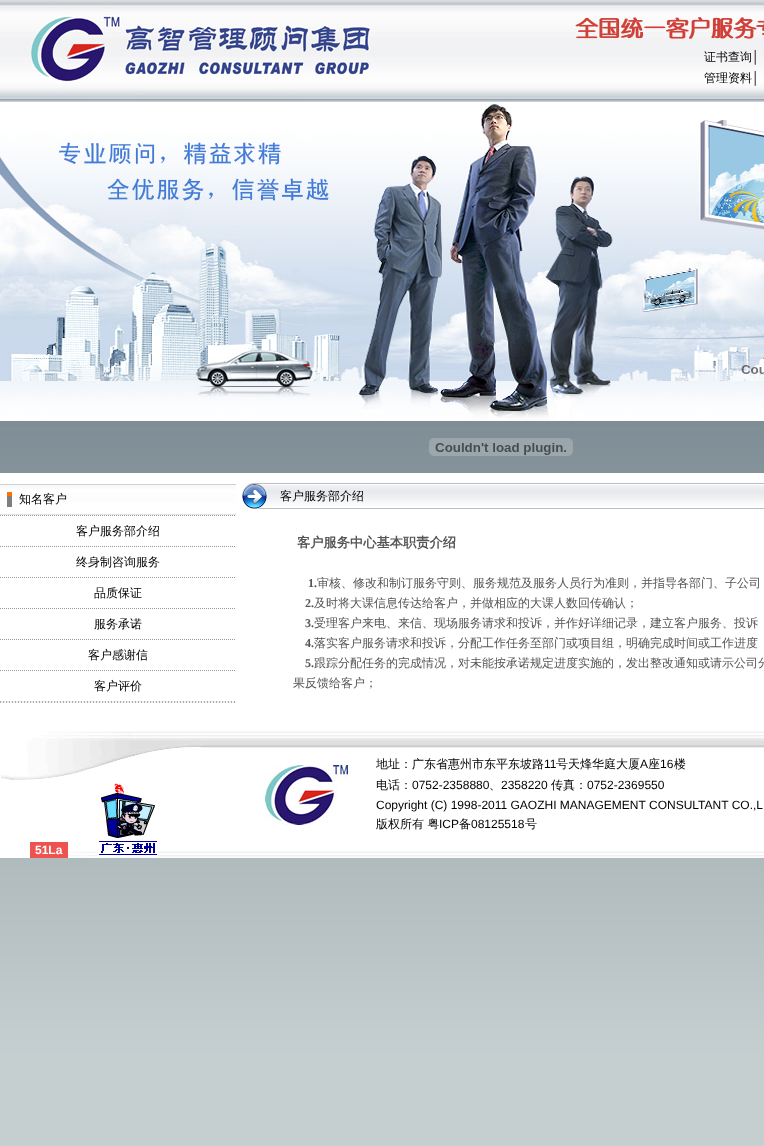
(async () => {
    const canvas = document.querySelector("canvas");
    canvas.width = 764;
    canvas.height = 1146;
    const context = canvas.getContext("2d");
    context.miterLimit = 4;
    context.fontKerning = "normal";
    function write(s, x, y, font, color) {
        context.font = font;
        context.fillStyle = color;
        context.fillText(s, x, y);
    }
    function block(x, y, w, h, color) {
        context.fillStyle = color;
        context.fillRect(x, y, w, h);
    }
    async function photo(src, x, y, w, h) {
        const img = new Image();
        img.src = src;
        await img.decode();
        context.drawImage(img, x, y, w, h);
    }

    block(0, 0, 764, 1146, "rgb(255, 255, 255)");
    await photo("media/1.png", 0, 421, 764, 725);
    await photo("media/2.png", 0, 0, 764, 102);
    write("证书查询", 704, 61, "500 12px WenQuanYi Zen Hei", "rgb(0, 0, 0)");
    write("│", 752, 61, "12px Liberation Sans", "rgb(0, 0, 0)");
    write("管理资料", 704, 82, "500 12px WenQuanYi Zen Hei", "rgb(0, 0, 0)");
    write("│", 752, 82, "12px Liberation Sans", "rgb(0, 0, 0)");
    await photo("media/3.png", 0, 102, 764, 319);
    await photo("media/4.png", 735, 361, 29, 15);
    await photo("media/5.png", 429, 438, 144, 18);
    block(0, 473, 764, 258, "rgb(255, 255, 255)");
    await photo("media/6.png", 0, 484, 236, 31);
    await photo("media/7.png", 7, 492, 5, 15);
    write("知名客户", 19, 503, "500 12px WenQuanYi Zen Hei", "rgb(0, 0, 0)");
    context.beginPath();
    context.moveTo(0, 515.5);
    context.lineTo(236, 515.5);
    context.strokeStyle = "rgb(153, 153, 153)";
    context.setLineDash([1, 1]);
    context.stroke();
    write("客户服务部介绍", 76, 535, "500 12px WenQuanYi Zen Hei", "rgb(0, 0, 0)");
    context.beginPath();
    context.moveTo(0, 546.5);
    context.lineTo(236, 546.5);
    context.stroke();
    write("终身制咨询服务", 76, 566, "500 12px WenQuanYi Zen Hei", "rgb(0, 0, 0)");
    context.beginPath();
    context.moveTo(0, 577.5);
    context.lineTo(236, 577.5);
    context.stroke();
    write("品质保证", 94, 597, "500 12px WenQuanYi Zen Hei", "rgb(0, 0, 0)");
    context.beginPath();
    context.moveTo(0, 608.5);
    context.lineTo(236, 608.5);
    context.stroke();
    write("服务承诺", 94, 628, "500 12px WenQuanYi Zen Hei", "rgb(0, 0, 0)");
    context.beginPath();
    context.moveTo(0, 639.5);
    context.lineTo(236, 639.5);
    context.stroke();
    write("客户感谢信", 88, 659, "500 12px WenQuanYi Zen Hei", "rgb(0, 0, 0)");
    context.beginPath();
    context.moveTo(0, 670.5);
    context.lineTo(236, 670.5);
    context.stroke();
    write("客户评价", 94, 690, "500 12px WenQuanYi Zen Hei", "rgb(0, 0, 0)");
    await photo("media/8.png", 0, 701, 236, 1);
    await photo("media/8.png", 0, 702, 236, 1);
    await photo("media/9.png", 267, 483, 497, 26);
    await photo("media/10.png", 242, 483, 25, 26);
    write("客户服务部介绍", 280, 500, "500 12px WenQuanYi Zen Hei", "rgb(0, 0, 0)");
    write("客户服务中心基本职责介绍", 297, 547, "bold 13.25px WenQuanYi Zen Hei", "rgb(85, 85, 85)");
    write("1.", 308, 587, "bold 12px Liberation Serif", "rgb(85, 85, 85)");
    write("审核、修改和制订服务守则、服务规范及服务人员行为准则，并指导各部门、子公司", 317, 587, "500 12px WenQuanYi Zen Hei", "rgb(85, 85, 85)");
    write("2.", 305, 607, "bold 12px Liberation Serif", "rgb(85, 85, 85)");
    write("及时将大课信息传达给客户，并做相应的大课人数回传确认；", 314, 607, "500 12px WenQuanYi Zen Hei", "rgb(85, 85, 85)");
    write("3.", 305, 627, "bold 12px Liberation Serif", "rgb(85, 85, 85)");
    write("受理客户来电、来信、现场服务请求和投诉，并作好详细记录，建立客户服务、投诉", 314, 627, "500 12px WenQuanYi Zen Hei", "rgb(85, 85, 85)");
    write("4.", 305, 647, "bold 12px Liberation Serif", "rgb(85, 85, 85)");
    write("落实客户服务请求和投诉，分配工作任务至部门或项目组，明确完成时间或工作进度", 314, 647, "500 12px WenQuanYi Zen Hei", "rgb(85, 85, 85)");
    write("5.", 305, 667, "bold 12px Liberation Serif", "rgb(85, 85, 85)");
    write("跟踪分配任务的完成情况，对未能按承诺规定进度实施的，发出整改通知或请示公司分", 314, 667, "500 12px WenQuanYi Zen Hei", "rgb(85, 85, 85)");
    write("果反馈给客户；", 293, 687, "500 12px WenQuanYi Zen Hei", "rgb(85, 85, 85)");
    await photo("media/11.png", 0, 731, 764, 127);
    block(30, 842, 38, 16, "rgb(239, 83, 80)");
    write("51La", 35, 854, "bold 12px Liberation Sans", "rgb(255, 255, 255)");
    await photo("media/12.png", 98, 783, 60, 74);
    await photo("media/13.png", 265, 765, 83, 60);
    write("地址：广东省惠州市东平东坡路", 376, 768, "500 12px WenQuanYi Zen Hei", "rgb(0, 0, 0)");
    write("11", 544, 768, "12px Liberation Sans", "rgb(0, 0, 0)");
    write("号天烽华庭大厦", 556, 768, "500 12px WenQuanYi Zen Hei", "rgb(0, 0, 0)");
    write("A", 640, 768, "12px Liberation Sans", "rgb(0, 0, 0)");
    write("座", 648, 768, "500 12px WenQuanYi Zen Hei", "rgb(0, 0, 0)");
    write("16", 660, 768, "12px Liberation Sans", "rgb(0, 0, 0)");
    write("楼", 674, 768, "500 12px WenQuanYi Zen Hei", "rgb(0, 0, 0)");
    write("电话：", 376, 789, "500 12px WenQuanYi Zen Hei", "rgb(0, 0, 0)");
    write("0752-2358880", 412, 789, "12px Liberation Sans", "rgb(0, 0, 0)");
    write("、", 489, 789, "500 12px WenQuanYi Zen Hei", "rgb(0, 0, 0)");
    write("2358220", 501, 789, "12px Liberation Sans", "rgb(0, 0, 0)");
    write("传真：", 551, 789, "500 12px WenQuanYi Zen Hei", "rgb(0, 0, 0)");
    write("0752-2369550", 587, 789, "12px Liberation Sans", "rgb(0, 0, 0)");
    write("Copyright (C) 1998-2011 GAOZHI MANAGEMENT CONSULTANT CO.,L", 376, 809, "12px Liberation Sans", "rgb(0, 0, 0)");
    write("版权所有 粤", 376, 828, "500 12px WenQuanYi Zen Hei", "rgb(0, 0, 0)");
    write("ICP", 439, 828, "12px Liberation Sans", "rgb(0, 0, 0)");
    write("备", 459, 828, "500 12px WenQuanYi Zen Hei", "rgb(0, 0, 0)");
    write("08125518", 471, 828, "12px Liberation Sans", "rgb(0, 0, 0)");
    write("号", 525, 828, "500 12px WenQuanYi Zen Hei", "rgb(0, 0, 0)");
})();
